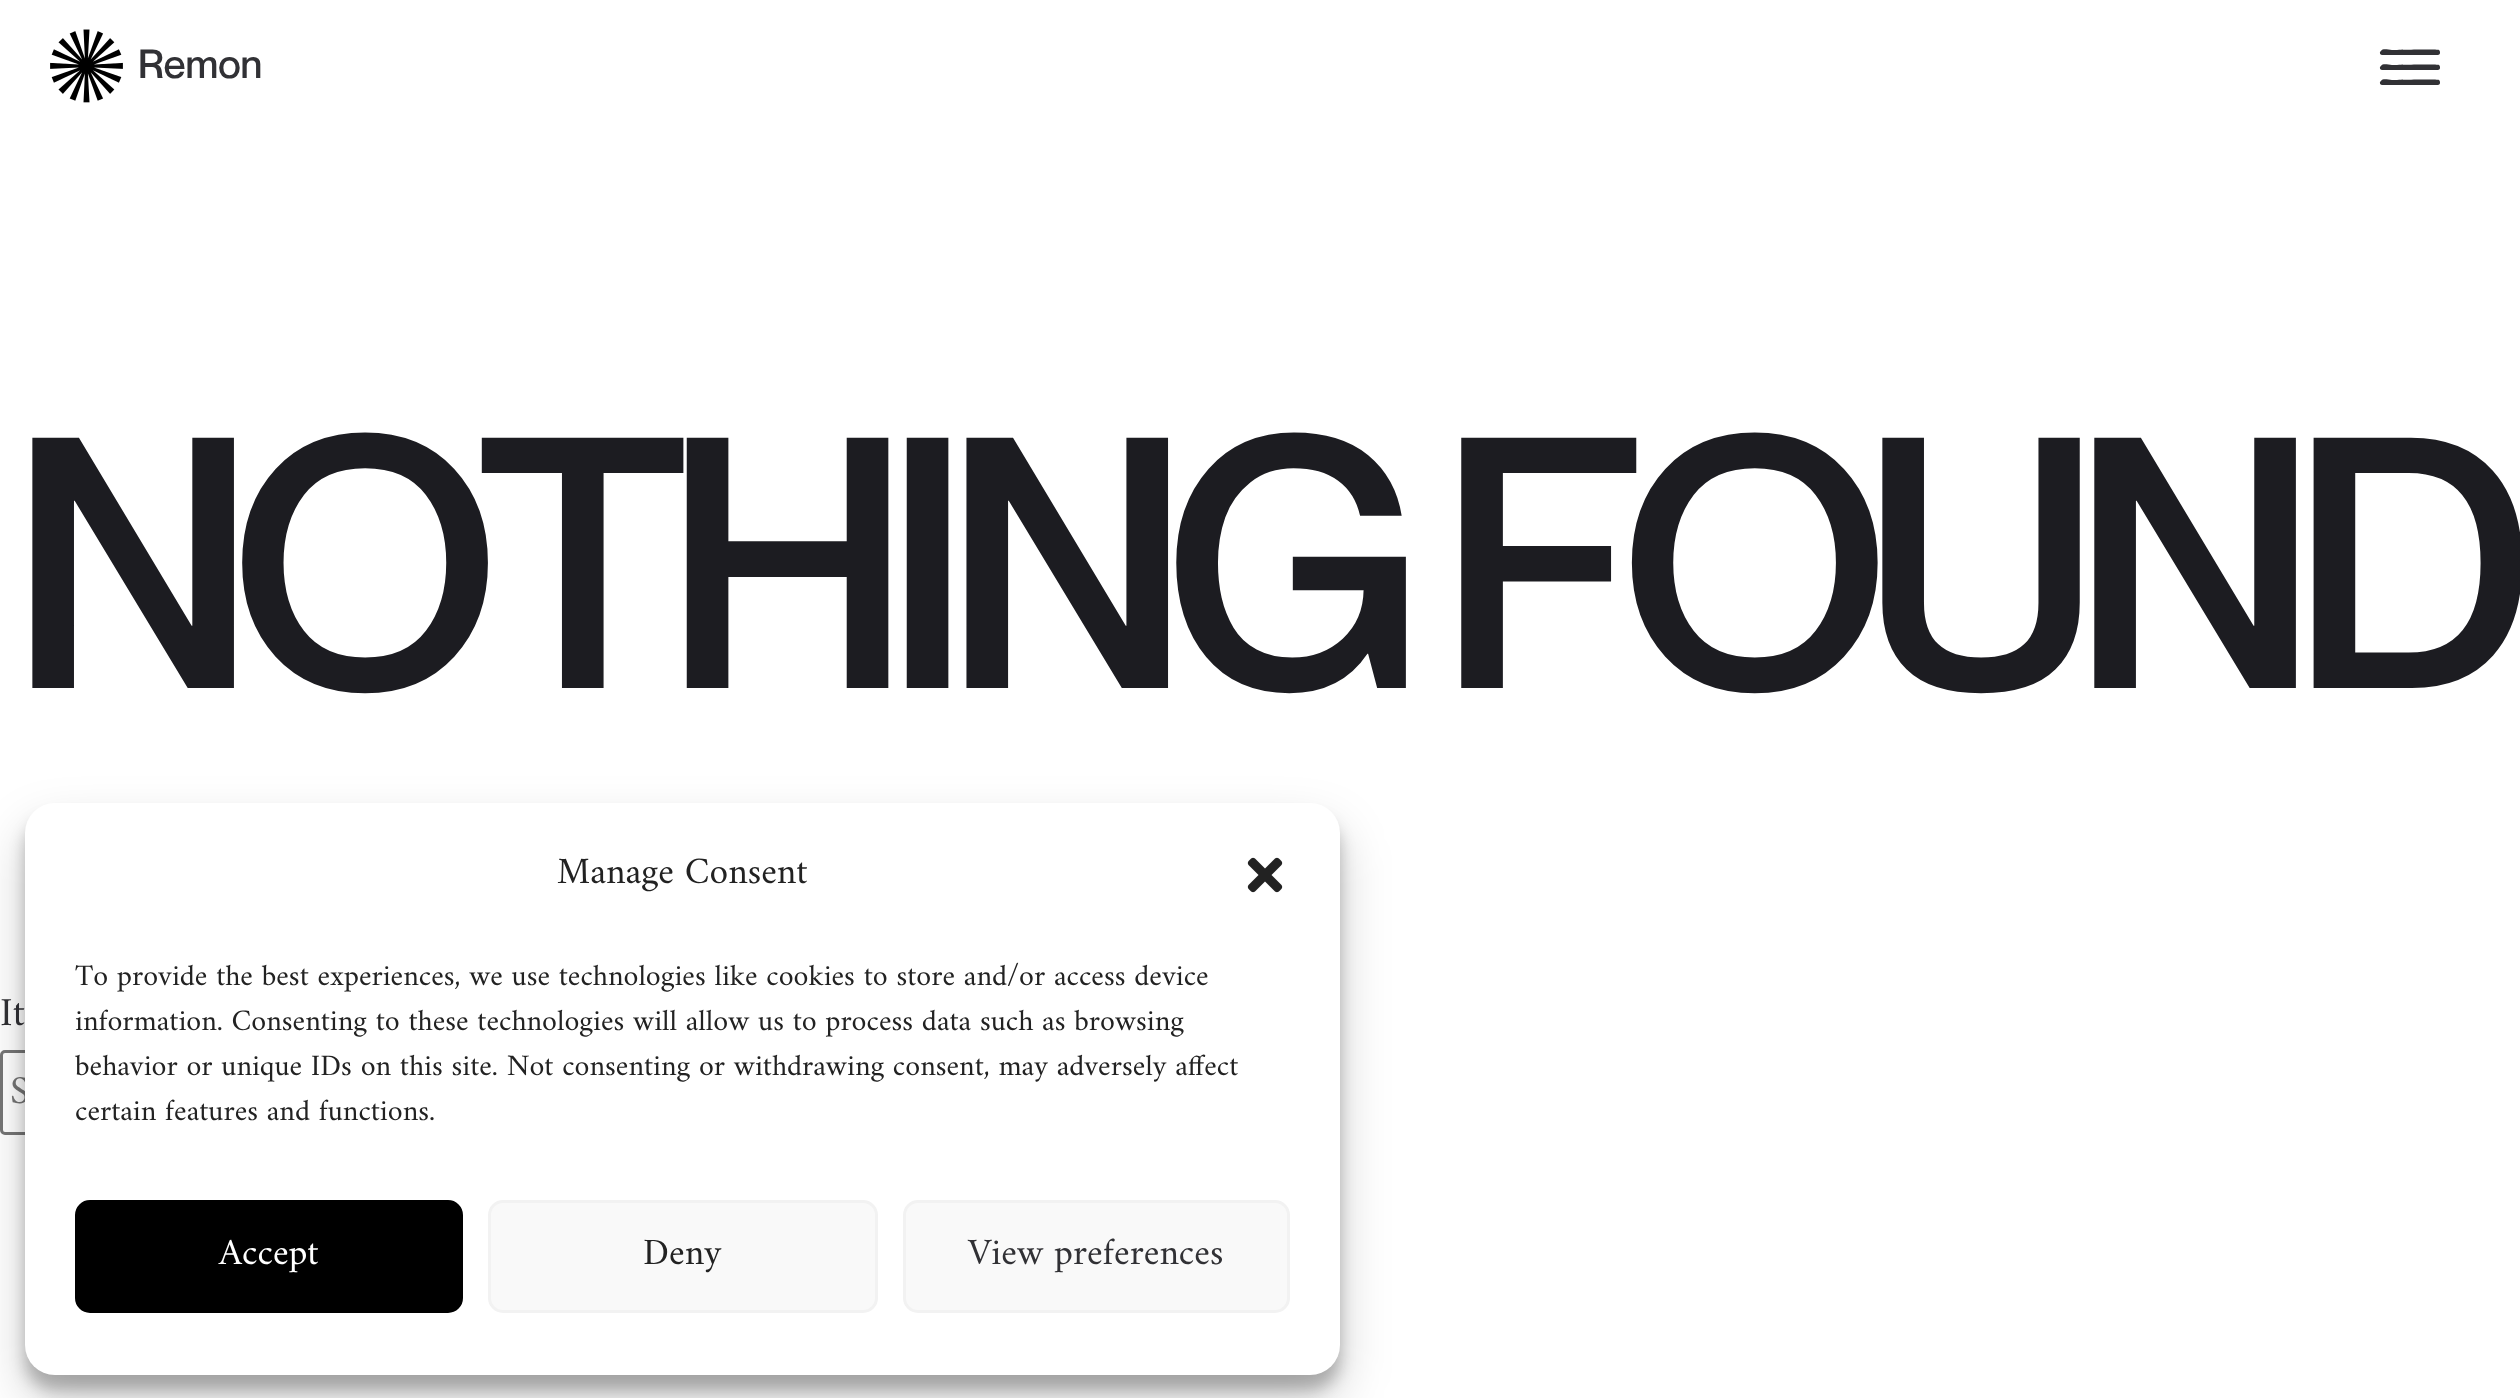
(async () => {
    const canvas = document.querySelector("canvas");
    canvas.width = 2520;
    canvas.height = 1398;
    const context = canvas.getContext("2d");
    context.miterLimit = 4;
    context.fontKerning = "none";
    function write(s, x, y, font, color) {
        context.font = font;
        context.fillStyle = color;
        context.fillText(s, x, y);
    }
    function block(x, y, w, h, color) {
        context.fillStyle = color;
        context.fillRect(x, y, w, h);
    }
    function card(x, y, w, h, r, color) {
        context.fillStyle = color;
        context.beginPath();
        context.roundRect(x, y, w, h, r);
        context.fill();
    }
    async function photo(src, x, y, w, h) {
        const img = new Image();
        img.src = src;
        await img.decode();
        context.drawImage(img, x, y, w, h);
    }

    block(0, 0, 2520, 1398, "rgb(255, 255, 255)");
    await photo("media/1.png", 50, 29, 73, 74);
    write("Remon", 138, 78, "500 40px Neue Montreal", "rgb(49, 49, 53)");
    context.beginPath();
    context.moveTo(2438, 70);
    context.lineTo(2382, 70);
    context.bezierCurveTo(2380, 70, 2379, 67, 2381, 66);
    context.bezierCurveTo(2383, 63, 2388, 65, 2392, 65);
    context.bezierCurveTo(2397, 65, 2437, 64, 2439, 65);
    context.bezierCurveTo(2441, 67, 2440, 70, 2438, 70);
    context.closePath();
    context.moveTo(2438, 85);
    context.lineTo(2382, 85);
    context.bezierCurveTo(2380, 85, 2379, 82, 2381, 81);
    context.bezierCurveTo(2383, 78, 2388, 80, 2392, 80);
    context.bezierCurveTo(2397, 80, 2437, 79, 2439, 80);
    context.bezierCurveTo(2441, 82, 2440, 85, 2438, 85);
    context.closePath();
    context.moveTo(2438, 55);
    context.lineTo(2382, 55);
    context.bezierCurveTo(2380, 55, 2379, 52, 2381, 51);
    context.bezierCurveTo(2383, 48, 2388, 50, 2392, 50);
    context.bezierCurveTo(2397, 50, 2437, 49, 2439, 50);
    context.bezierCurveTo(2441, 52, 2440, 55, 2438, 55);
    context.closePath();
    context.fill();
    context.letterSpacing = "-25px";
    write("NOTHING FOUND", 11, 688, "500 350px Neue Montreal", "rgb(28, 28, 33)");
    context.letterSpacing = "0px";
    write("It", 0, 1025, "40px Amiri", "rgb(49, 49, 53)");
    context.beginPath();
    context.roundRect(1.5, 1051.5, 840, 82, 3.5);
    context.strokeStyle = "rgb(118, 118, 118)";
    context.lineWidth = 3;
    context.stroke();
    write("S", 10, 1103, "40px Amiri", "rgb(117, 117, 117)");
    context.fillStyle = "rgba(0, 0, 0, 0.23)";
    context.filter = "blur(7.5px)";
    context.beginPath();
    context.roundRect(25, 818, 1315, 572, 30);
    context.fill();
    context.filter = "none";
    context.fillStyle = "rgba(0, 0, 0, 0.19)";
    context.filter = "blur(25px)";
    context.beginPath();
    context.roundRect(25, 828, 1315, 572, 30);
    context.fill();
    context.filter = "none";
    card(25, 803, 1315, 572, 30, "rgb(255, 255, 255)");
    write("Manage Consent", 557, 883, "37.5px Amiri", "rgb(34, 34, 34)");
    await photo("media/2.png", 1247, 857, 36, 36);
    write("To provide the best experiences, we use technologies like cookies to store and/or access device", 75, 985, "30px Amiri", "rgb(34, 34, 34)");
    write("information. Consenting to these technologies will allow us to process data such as browsing", 75, 1030, "30px Amiri", "rgb(34, 34, 34)");
    write("behavior or unique IDs on this site. Not consenting or withdrawing consent, may adversely affect", 75, 1075, "30px Amiri", "rgb(34, 34, 34)");
    write("certain features and functions.", 75, 1120, "30px Amiri", "rgb(34, 34, 34)");
    context.fillStyle = "rgb(0, 0, 0)";
    context.beginPath();
    context.roundRect(76.5, 1201.5, 385, 110, 13.5);
    context.fill();
    context.strokeStyle = "rgb(0, 0, 0)";
    context.stroke();
    write("Accept", 219, 1264, "37.5px Amiri", "rgb(255, 255, 255)");
    context.fillStyle = "rgb(249, 249, 249)";
    context.beginPath();
    context.roundRect(489.5, 1201.5, 387, 110, 13.5);
    context.fill();
    context.strokeStyle = "rgb(242, 242, 242)";
    context.stroke();
    write("Deny", 643, 1264, "37.5px Amiri", "rgb(34, 34, 34)");
    context.fillStyle = "rgb(249, 249, 249)";
    context.beginPath();
    context.roundRect(904.5, 1201.5, 384, 110, 13.5);
    context.fill();
    context.stroke();
    write("View preferences", 968, 1264, "37.5px Amiri", "rgb(49, 49, 53)");
})();
